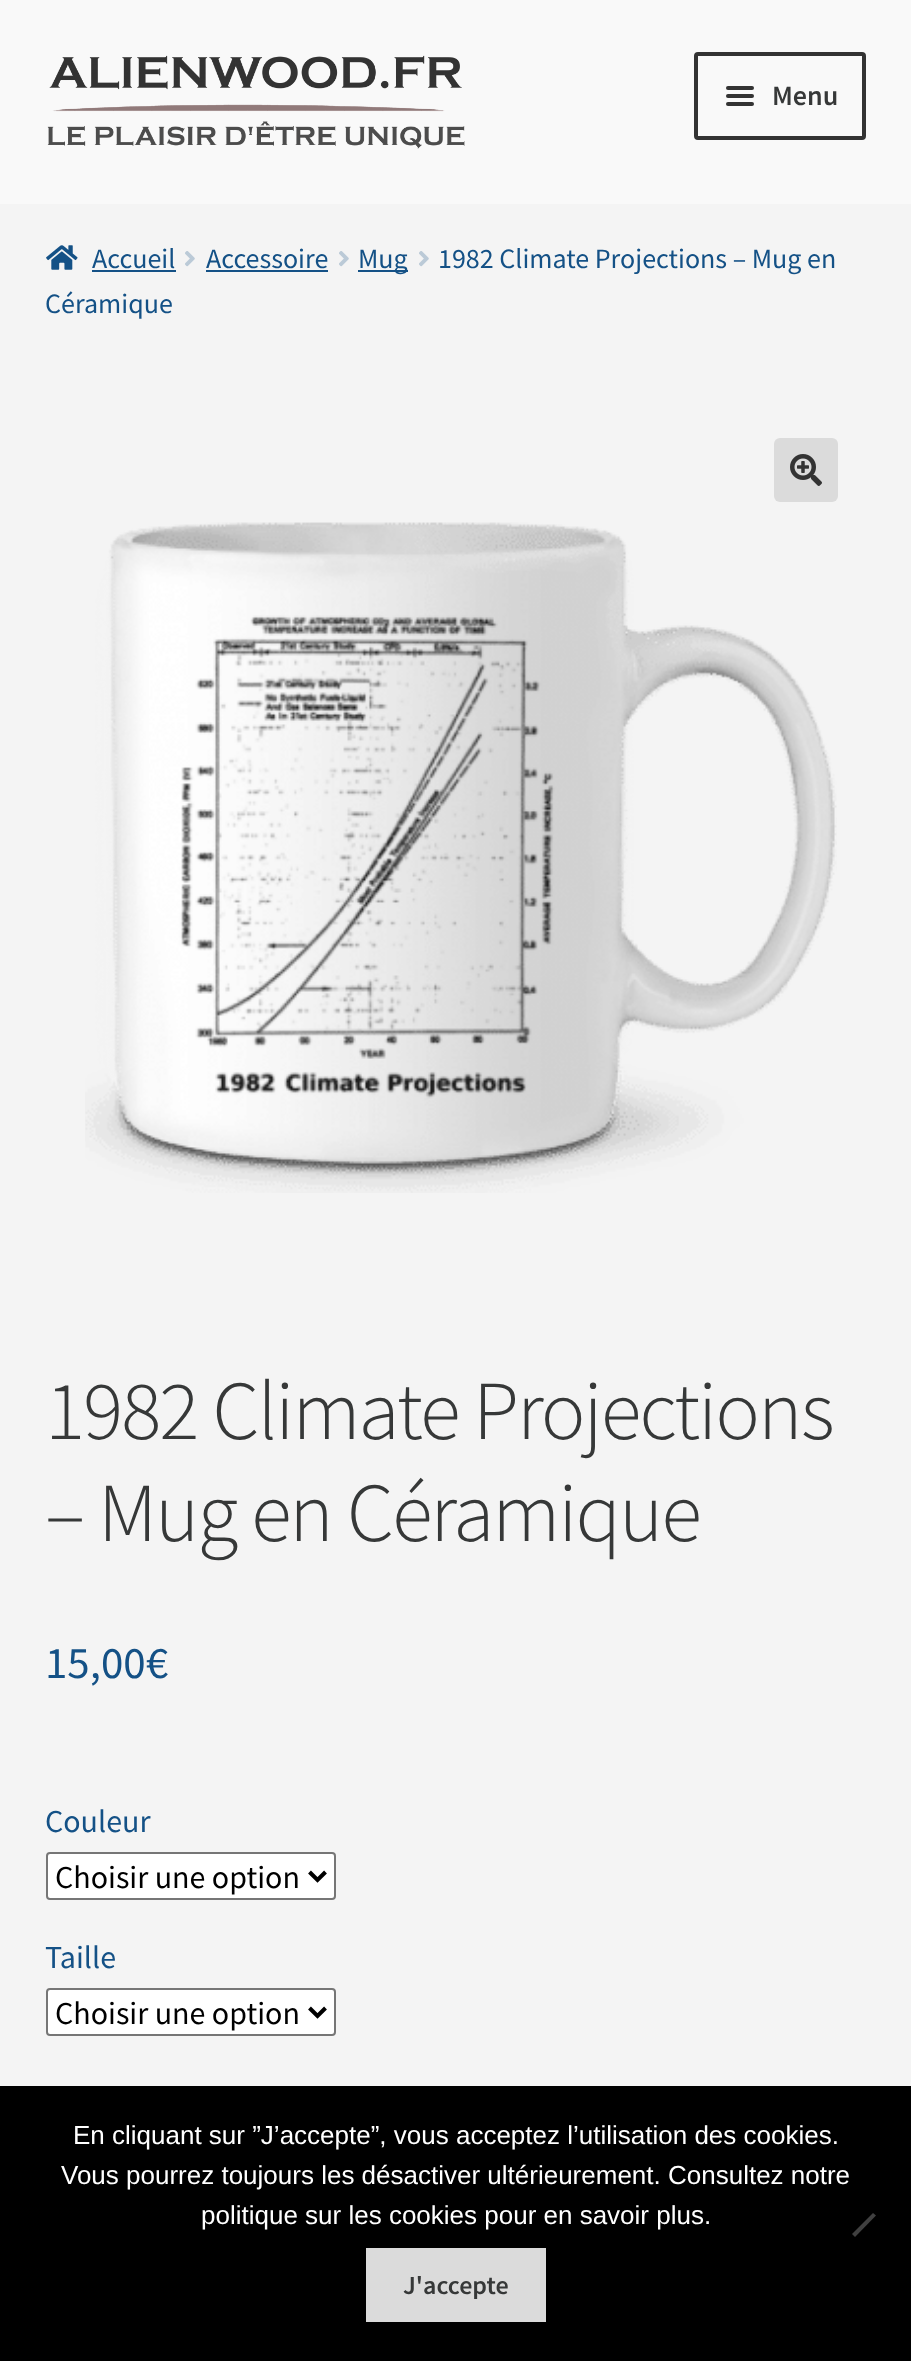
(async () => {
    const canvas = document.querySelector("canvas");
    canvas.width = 911;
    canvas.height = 2361;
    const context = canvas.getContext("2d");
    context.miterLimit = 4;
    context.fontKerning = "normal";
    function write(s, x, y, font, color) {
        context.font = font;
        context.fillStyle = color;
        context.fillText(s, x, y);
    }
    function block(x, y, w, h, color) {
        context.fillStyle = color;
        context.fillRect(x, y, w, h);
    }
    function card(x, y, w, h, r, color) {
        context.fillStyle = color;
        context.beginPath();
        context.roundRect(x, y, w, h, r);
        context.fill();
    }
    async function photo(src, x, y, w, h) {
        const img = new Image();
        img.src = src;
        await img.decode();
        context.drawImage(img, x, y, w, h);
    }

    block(0, 0, 911, 2361, "rgb(244, 244, 244)");
    block(0, 0, 911, 204, "rgb(249, 249, 249)");
    await photo("media/1.png", 47, 55, 418, 94);
    context.beginPath();
    context.roundRect(696, 54, 168, 84, 2);
    context.strokeStyle = "rgb(51, 51, 51)";
    context.lineWidth = 4;
    context.stroke();
    card(726, 86, 28, 4, 2, "rgb(51, 51, 51)");
    card(726, 94, 28, 4, 2, "rgb(51, 51, 51)");
    write("Menu", 772, 105, "600 28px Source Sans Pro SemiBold", "rgb(54, 56, 56)");
    card(726, 102, 28, 4, 2, "rgb(51, 51, 51)");
    await photo("media/2.png", 46, 245, 32, 25);
    write("Accueil", 92, 268, "28px Source Sans Pro", "rgb(20, 81, 134)");
    block(92, 270, 84, 2, "rgb(20, 81, 134)");
    await photo("media/3.png", 185, 251, 10, 16);
    write("Accessoire", 206, 268, "28px Source Sans Pro", "rgb(20, 81, 134)");
    block(206, 270, 122, 2, "rgb(20, 81, 134)");
    await photo("media/3.png", 339, 251, 10, 16);
    block(358, 270, 50, 2, "rgb(20, 81, 134)");
    write("Mug", 358, 268, "28px Source Sans Pro", "rgb(20, 81, 134)");
    await photo("media/3.png", 419, 251, 10, 16);
    write("1982 Climate Projections – Mug en", 438, 268, "28px Source Sans Pro", "rgb(20, 81, 134)");
    write("Céramique", 45, 313, "28px Source Sans Pro", "rgb(20, 81, 134)");
    card(774, 438, 64, 64, 6, "rgb(219, 219, 219)");
    await photo("media/4.png", 790, 454, 32, 32);
    await photo("media/5.png", 85, 522, 752, 671);
    context.letterSpacing = "-2px";
    write("1982 Climate Projections", 45, 1439, "300 83.75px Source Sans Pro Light", "rgb(54, 56, 56)");
    write("– Mug en Céramique", 45, 1541, "300 83.75px Source Sans Pro Light", "rgb(54, 56, 56)");
    context.letterSpacing = "0px";
    write("15,00€", 45, 1678, "45px Source Sans Pro", "rgb(20, 81, 134)");
    write("Couleur", 45, 1832, "32px Source Sans Pro", "rgb(20, 81, 134)");
    context.fillStyle = "rgb(255, 255, 255)";
    context.beginPath();
    context.roundRect(47, 1853, 288, 46, 3);
    context.fill();
    context.strokeStyle = "rgb(118, 118, 118)";
    context.lineWidth = 2;
    context.stroke();
    context.beginPath();
    context.moveTo(309.5, 1872);
    context.lineTo(317.5, 1880);
    context.lineTo(325.5, 1872);
    context.strokeStyle = "rgb(0, 0, 0)";
    context.lineWidth = 4;
    context.stroke();
    write("Choisir une option", 55, 1888, "32px Source Sans Pro", "rgb(0, 0, 0)");
    write("Taille", 45, 1968, "32px Source Sans Pro", "rgb(20, 81, 134)");
    context.fillStyle = "rgb(255, 255, 255)";
    context.beginPath();
    context.roundRect(47, 1989, 288, 46, 3);
    context.fill();
    context.strokeStyle = "rgb(118, 118, 118)";
    context.lineWidth = 2;
    context.stroke();
    context.beginPath();
    context.moveTo(309.5, 2008);
    context.lineTo(317.5, 2016);
    context.lineTo(325.5, 2008);
    context.strokeStyle = "rgb(0, 0, 0)";
    context.lineWidth = 4;
    context.stroke();
    write("Choisir une option", 55, 2024, "32px Source Sans Pro", "rgb(0, 0, 0)");
    block(0, 2086, 911, 275, "rgb(0, 0, 0)");
    write("En cliquant sur ”J’accepte”, vous acceptez l’utilisation des cookies.", 73, 2144, "26px Liberation Sans", "rgb(255, 255, 255)");
    write("Vous pourrez toujours les désactiver ultérieurement. Consultez notre", 61, 2184, "26px Liberation Sans", "rgb(255, 255, 255)");
    write("politique sur les cookies pour en savoir plus.", 201, 2224, "26px Liberation Sans", "rgb(255, 255, 255)");
    context.fillStyle = "rgb(64, 64, 64)";
    context.beginPath();
    context.moveTo(873, 2213);
    context.lineTo(876, 2215.5);
    context.lineTo(855, 2237);
    context.lineTo(852, 2234);
    context.closePath();
    context.fill();
    block(366, 2248, 180, 74, "rgb(219, 219, 219)");
    write("J'accepte", 403, 2294, "600 26px Source Sans Pro SemiBold", "rgb(54, 56, 56)");
})();
